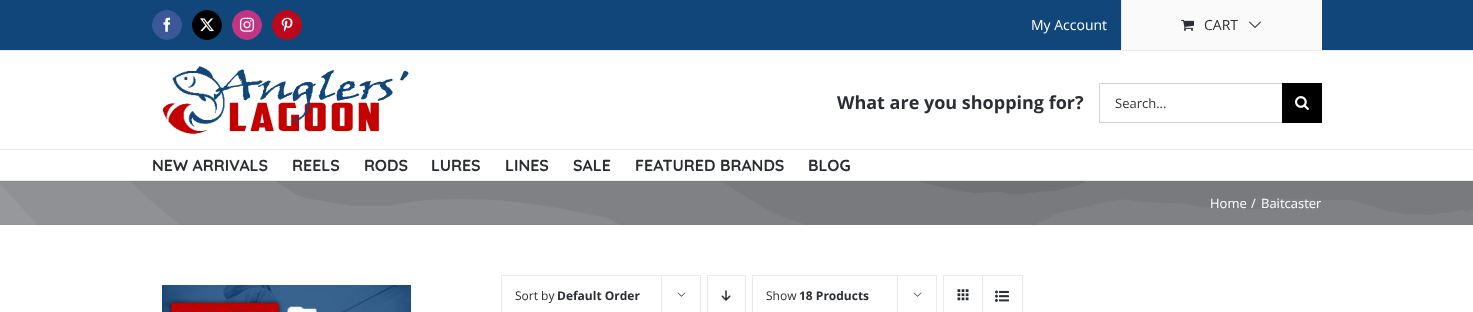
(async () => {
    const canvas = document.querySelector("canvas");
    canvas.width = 1473;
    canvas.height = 312;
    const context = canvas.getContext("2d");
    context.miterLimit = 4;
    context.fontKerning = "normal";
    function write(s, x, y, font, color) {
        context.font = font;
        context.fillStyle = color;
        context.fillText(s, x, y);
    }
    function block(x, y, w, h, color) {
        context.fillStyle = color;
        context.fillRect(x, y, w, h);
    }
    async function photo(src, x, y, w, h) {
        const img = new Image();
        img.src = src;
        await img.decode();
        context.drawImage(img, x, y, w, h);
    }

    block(0, 0, 1473, 312, "rgb(255, 255, 255)");
    block(0, 0, 1473, 50, "rgb(17, 70, 122)");
    block(0, 50, 1473, 1, "rgb(234, 234, 234)");
    context.fillStyle = "rgb(59, 89, 152)";
    context.beginPath();
    context.arc(167, 25, 14.5, 0, Math.PI * 2);
    context.fill();
    context.strokeStyle = "rgb(59, 89, 152)";
    context.stroke();
    await photo("media/1.png", 163, 17, 8, 15);
    context.fillStyle = "rgb(0, 0, 0)";
    context.beginPath();
    context.arc(207, 25, 14.5, 0, Math.PI * 2);
    context.fill();
    context.strokeStyle = "rgb(0, 0, 0)";
    context.stroke();
    await photo("media/2.png", 200, 18, 14, 14);
    context.fillStyle = "rgb(193, 53, 132)";
    context.beginPath();
    context.arc(247, 25, 14.5, 0, Math.PI * 2);
    context.fill();
    context.strokeStyle = "rgb(193, 53, 132)";
    context.stroke();
    await photo("media/3.png", 240, 17, 14, 15);
    context.fillStyle = "rgb(189, 8, 28)";
    context.beginPath();
    context.arc(287, 25, 14.5, 0, Math.PI * 2);
    context.fill();
    context.strokeStyle = "rgb(189, 8, 28)";
    context.stroke();
    await photo("media/4.png", 281, 17, 12, 15);
    write("My Account", 1031, 30, "14px Open Sans", "rgb(255, 255, 255)");
    block(1121, 0, 1, 50, "rgb(234, 234, 234)");
    block(1122, 0, 200, 50, "rgb(250, 250, 250)");
    await photo("media/5.png", 1181, 19, 13, 12);
    write("CART", 1204, 30, "14px Open Sans", "rgb(43, 46, 50)");
    await photo("media/6.png", 1249, 21, 12, 7);
    block(0, 149, 1473, 1, "rgb(234, 234, 234)");
    await photo("media/7.png", 162, 66, 247, 68);
    write("What are you shopping for?", 837, 109, "bold 18px Open Sans", "rgb(43, 46, 50)");
    block(1099, 83, 183, 1, "rgb(210, 210, 210)");
    block(1099, 122, 183, 1, "rgb(210, 210, 210)");
    block(1099, 83, 1, 40, "rgb(210, 210, 210)");
    write("Search...", 1115, 108, "13px Open Sans", "rgb(51, 51, 51)");
    block(1282, 83, 40, 40, "rgb(0, 0, 0)");
    await photo("media/8.png", 1295, 96, 14, 14);
    block(0, 180, 1473, 1, "rgb(234, 234, 234)");
    write("NEW ARRIVALS", 152, 171, "300 16px Quicksand", "rgb(43, 46, 50)");
    write("REELS", 292, 171, "300 16px Quicksand", "rgb(43, 46, 50)");
    write("RODS", 364, 171, "300 16px Quicksand", "rgb(43, 46, 50)");
    write("LURES", 431, 171, "300 16px Quicksand", "rgb(43, 46, 50)");
    write("LINES", 505, 171, "300 16px Quicksand", "rgb(43, 46, 50)");
    write("SALE", 573, 171, "300 16px Quicksand", "rgb(43, 46, 50)");
    write("FEATURED BRANDS", 635, 171, "300 16px Quicksand", "rgb(43, 46, 50)");
    write("BLOG", 808, 171, "300 16px Quicksand", "rgb(43, 46, 50)");
    await photo("media/9.png", 0, 181, 1473, 44);
    write("Home", 1210, 208, "13px Open Sans", "rgb(255, 255, 255)");
    write("/", 1251, 208, "13px Open Sans", "rgb(255, 255, 255)");
    write("Baitcaster", 1261, 208, "13px Open Sans", "rgb(255, 255, 255)");
    await photo("media/10.png", 162, 285, 249, 27);
    context.strokeStyle = "rgb(234, 234, 234)";
    context.strokeRect(501.5, 275.5, 199, 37);
    write("Sort by", 515, 300, "12px Open Sans", "rgb(43, 46, 50)");
    write("Default Order", 557, 300, "bold 12px Open Sans", "rgb(43, 46, 50)");
    block(661, 275, 1, 37, "rgb(234, 234, 234)");
    await photo("media/11.png", 677, 292, 9, 5);
    context.strokeRect(707.5, 275.5, 38, 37);
    await photo("media/12.png", 721, 290, 10, 11);
    context.strokeRect(752.5, 275.5, 184, 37);
    write("Show", 766, 300, "12px Open Sans", "rgb(43, 46, 50)");
    write("18 Products", 799, 300, "bold 12px Open Sans", "rgb(43, 46, 50)");
    block(897, 275, 1, 37, "rgb(234, 234, 234)");
    await photo("media/11.png", 913, 292, 9, 5);
    context.strokeRect(943.5, 275.5, 79, 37);
    block(982, 276, 1, 36, "rgb(234, 234, 234)");
    await photo("media/13.png", 957, 289, 12, 12);
    await photo("media/14.png", 995, 290, 14, 12);
})();
